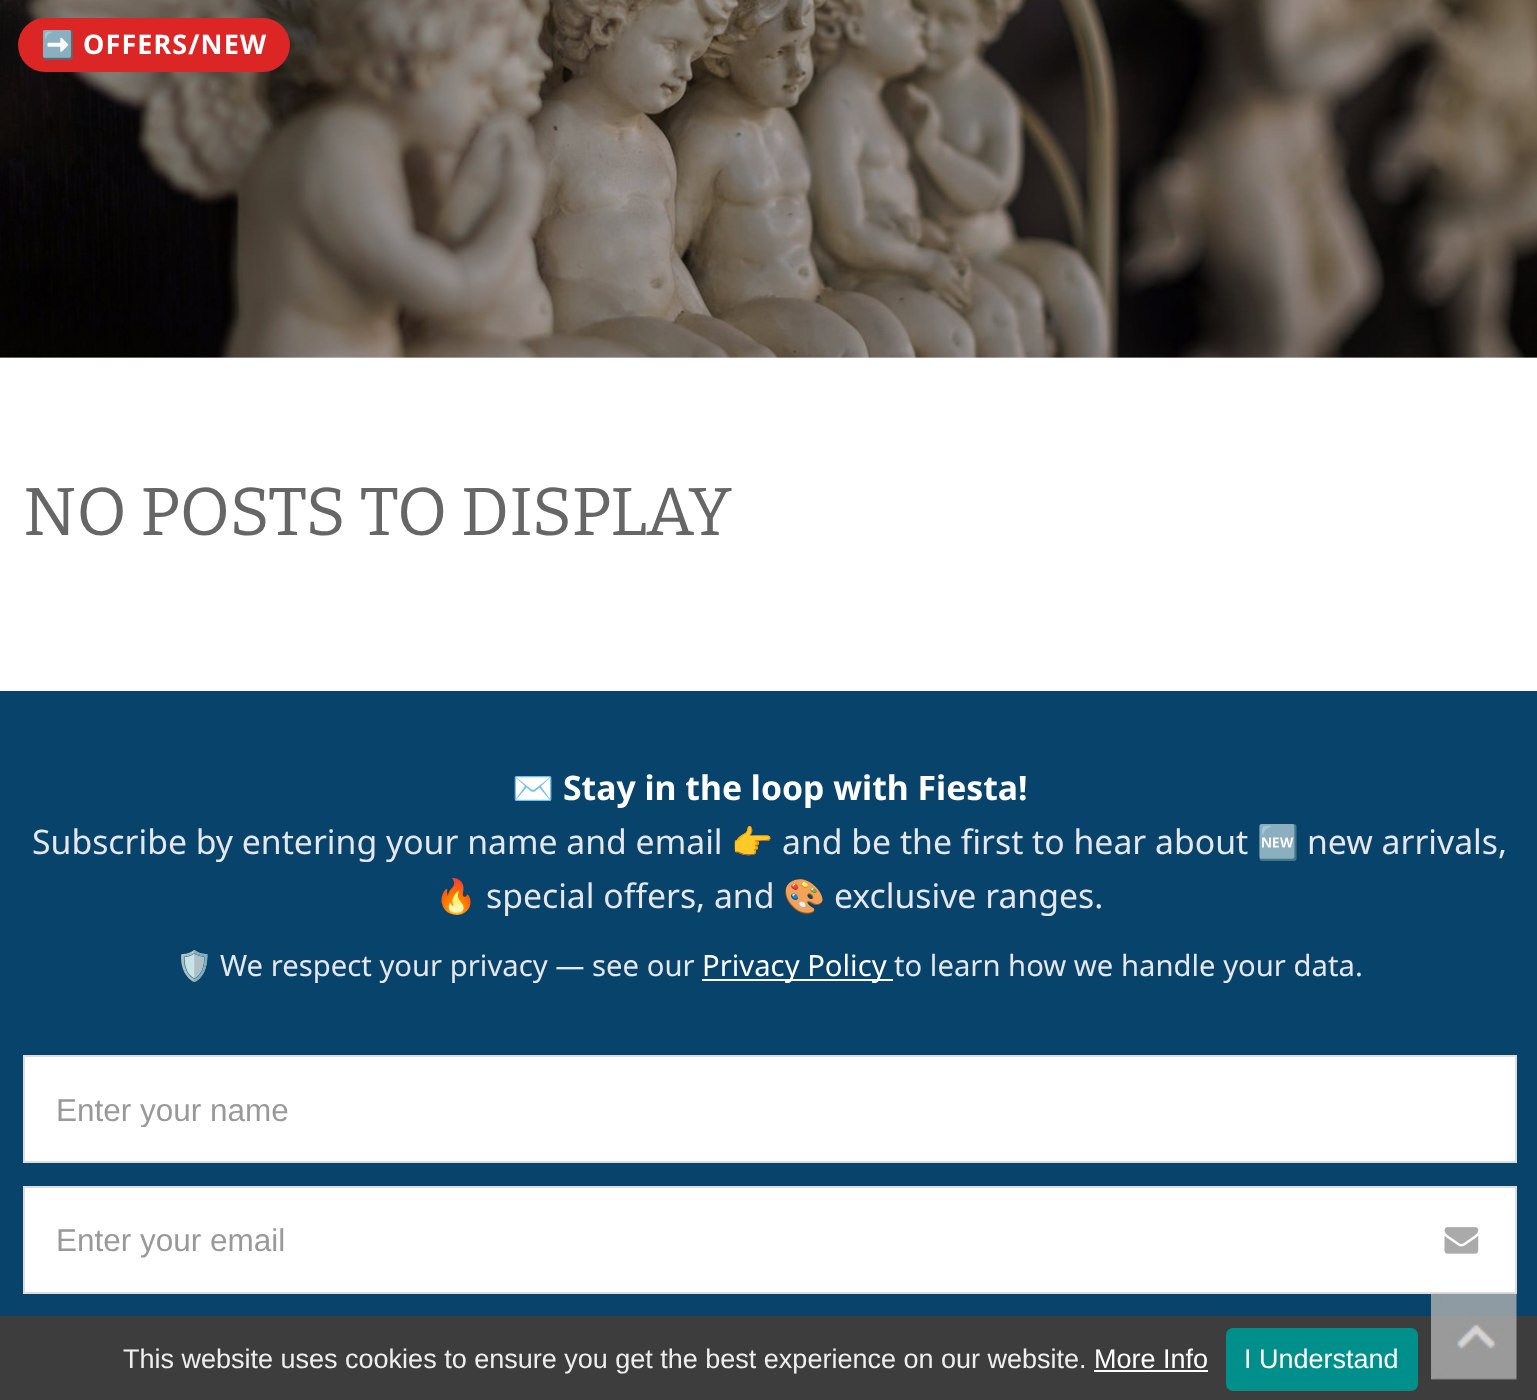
(async () => {
    const canvas = document.querySelector("canvas");
    canvas.width = 1537;
    canvas.height = 1400;
    const context = canvas.getContext("2d");
    context.miterLimit = 4;
    context.fontKerning = "normal";
    function write(s, x, y, font, color) {
        context.font = font;
        context.fillStyle = color;
        context.fillText(s, x, y);
    }
    function block(x, y, w, h, color) {
        context.fillStyle = color;
        context.fillRect(x, y, w, h);
    }
    function card(x, y, w, h, r, color) {
        context.fillStyle = color;
        context.beginPath();
        context.roundRect(x, y, w, h, r);
        context.fill();
    }
    async function photo(src, x, y, w, h) {
        const img = new Image();
        img.src = src;
        await img.decode();
        context.drawImage(img, x, y, w, h);
    }

    block(0, 0, 1537, 1400, "rgb(255, 255, 255)");
    block(0, 357, 1537, 1, "rgb(221, 221, 221)");
    await photo("media/1.png", 0, 0, 1537, 358);
    card(18, 18, 272, 54, 27, "rgb(220, 38, 38)");
    context.letterSpacing = "1.1px";
    write("➡️", 41, 54, "bold 27px Noto Color Emoji", "rgb(255, 255, 255)");
    write("OFFERS/NEW", 83, 54, "bold 27px Noto Sans", "rgb(255, 255, 255)");
    context.letterSpacing = "0px";
    write("NO POSTS TO DISPLAY", 23, 535, "67.5px Bitter", "rgb(102, 102, 102)");
    block(0, 691, 1537, 625, "rgb(8, 67, 107)");
    write("✉️", 512, 800, "33.75px Noto Color Emoji", "rgb(229, 231, 235)");
    write("Stay in the loop with Fiesta!", 563, 800, "bold 33.75px Noto Sans", "rgb(255, 255, 255)");
    write("Subscribe by entering your name and email", 32, 854, "33.75px Noto Sans", "rgb(229, 231, 235)");
    write("👉", 731, 854, "33.75px Noto Color Emoji", "rgb(229, 231, 235)");
    write("and be the first to hear about", 782, 854, "33.75px Noto Sans", "rgb(229, 231, 235)");
    write("🆕", 1257, 854, "33.75px Noto Color Emoji", "rgb(229, 231, 235)");
    write("new arrivals,", 1307, 854, "33.75px Noto Sans", "rgb(229, 231, 235)");
    write("🔥", 435, 908, "33.75px Noto Color Emoji", "rgb(229, 231, 235)");
    write("special offers, and", 486, 908, "33.75px Noto Sans", "rgb(229, 231, 235)");
    write("🎨", 783, 908, "33.75px Noto Color Emoji", "rgb(229, 231, 235)");
    write("exclusive ranges.", 834, 908, "33.75px Noto Sans", "rgb(229, 231, 235)");
    write("🛡️", 176, 976, "29.25px Noto Color Emoji", "rgb(229, 231, 235)");
    write("We respect your privacy — see our", 220, 976, "29.25px Noto Sans", "rgb(229, 231, 235)");
    block(702, 979, 191, 2, "rgb(255, 255, 255)");
    write("Privacy Policy", 702, 976, "29.25px Noto Sans", "rgb(255, 255, 255)");
    write("to learn how we handle your data.", 894, 976, "29.25px Noto Sans", "rgb(229, 231, 235)");
    context.fillStyle = "rgb(255, 255, 255)";
    context.beginPath();
    context.rect(24, 1056, 1492, 106);
    context.fill();
    context.strokeStyle = "rgb(221, 221, 221)";
    context.lineWidth = 2;
    context.stroke();
    context.save();
    context.beginPath();
    context.rect(56, 1091, 1427, 36);
    context.clip();
    write("Enter your name", 56, 1121, "31.5px Liberation Sans", "rgb(153, 153, 153)");
    context.restore();
    context.beginPath();
    context.rect(24, 1187, 1492, 106);
    context.fill();
    context.stroke();
    write("Enter your email", 56, 1251, "31.5px Liberation Sans", "rgb(153, 153, 153)");
    await photo("media/2.png", 1444, 1227, 35, 27);
    block(0, 1316, 1537, 84, "rgb(61, 61, 61)");
    write("This website uses cookies to ensure you get the best experience on our website.", 123, 1368, "27px Liberation Sans", "rgb(238, 238, 238)");
    write("More Info", 1094, 1368, "27px Liberation Sans", "rgb(255, 255, 255)");
    block(1094, 1370, 114, 2, "rgb(255, 255, 255)");
    card(1226, 1328, 192, 63, 7, "rgb(0, 143, 138)");
    write("I Understand", 1244, 1368, "27px Liberation Sans", "rgb(255, 255, 255)");
    await photo("media/3.png", 1431, 1293, 86, 87);
})();
